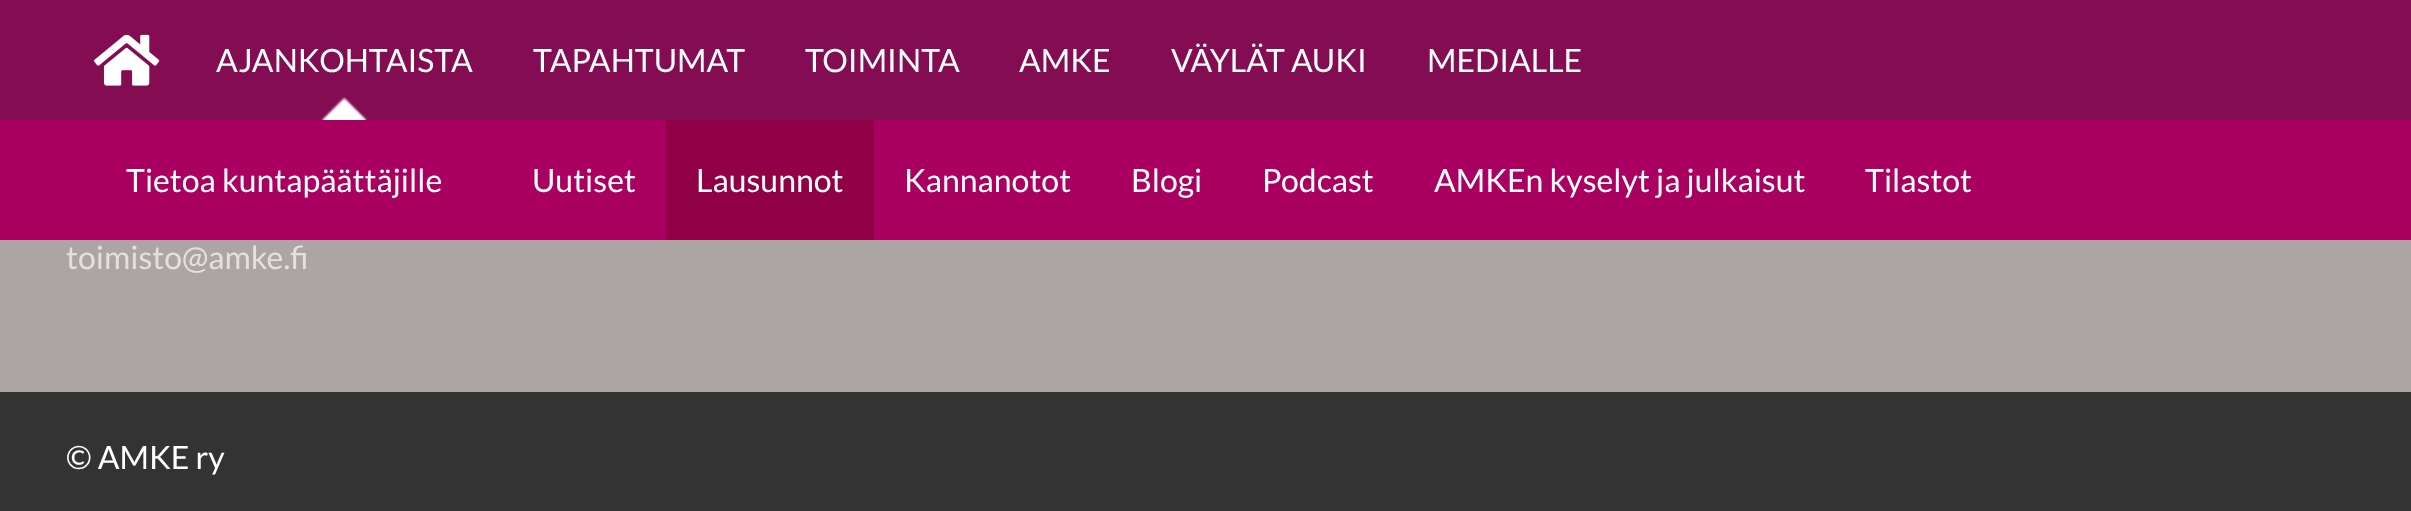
(async () => {
    const canvas = document.querySelector("canvas");
    canvas.width = 2411;
    canvas.height = 511;
    const context = canvas.getContext("2d");
    context.miterLimit = 4;
    context.fontKerning = "normal";
    function write(s, x, y, font, color) {
        context.font = font;
        context.fillStyle = color;
        context.fillText(s, x, y);
    }
    function block(x, y, w, h, color) {
        context.fillStyle = color;
        context.fillRect(x, y, w, h);
    }
    async function photo(src, x, y, w, h) {
        const img = new Image();
        img.src = src;
        await img.decode();
        context.drawImage(img, x, y, w, h);
    }

    block(0, 0, 2411, 511, "rgb(173, 165, 163)");
    block(0, 0, 2411, 120, "rgb(131, 12, 83)");
    await photo("media/1.png", 94, 34, 66, 52);
    await photo("media/2.png", 321, 97, 46, 23);
    write("AJANKOHTAISTA", 216, 72, "32px Lato", "rgb(255, 255, 255)");
    write("TAPAHTUMAT", 533, 72, "32px Lato", "rgb(255, 255, 255)");
    write("TOIMINTA", 805, 72, "32px Lato", "rgb(255, 255, 255)");
    write("AMKE", 1019, 72, "32px Lato", "rgb(255, 255, 255)");
    write("VÄYLÄT AUKI", 1171, 72, "32px Lato", "rgb(255, 255, 255)");
    write("MEDIALLE", 1427, 72, "32px Lato", "rgb(255, 255, 255)");
    block(0, 120, 2411, 120, "rgb(170, 0, 97)");
    write("Tietoa kuntapäättäjille", 126, 192, "32px Lato", "rgb(255, 255, 255)");
    write("Uutiset", 532, 192, "32px Lato", "rgb(255, 255, 255)");
    block(666, 120, 208, 120, "rgb(144, 0, 70)");
    write("Lausunnot", 696, 192, "32px Lato", "rgb(255, 255, 255)");
    write("Kannanotot", 904, 192, "32px Lato", "rgb(255, 255, 255)");
    write("Blogi", 1131, 192, "32px Lato", "rgb(255, 255, 255)");
    write("Podcast", 1262, 192, "32px Lato", "rgb(255, 255, 255)");
    write("AMKEn kyselyt ja julkaisut", 1434, 192, "32px Lato", "rgb(255, 255, 255)");
    write("Tilastot", 1865, 192, "32px Lato", "rgb(255, 255, 255)");
    write("toimisto@amke.fi", 66, 269, "32px Lato", "rgb(228, 225, 220)");
    block(0, 392, 2411, 119, "rgb(51, 51, 51)");
    write("© AMKE ry", 66, 469, "32px Lato", "rgb(255, 255, 255)");
})();
